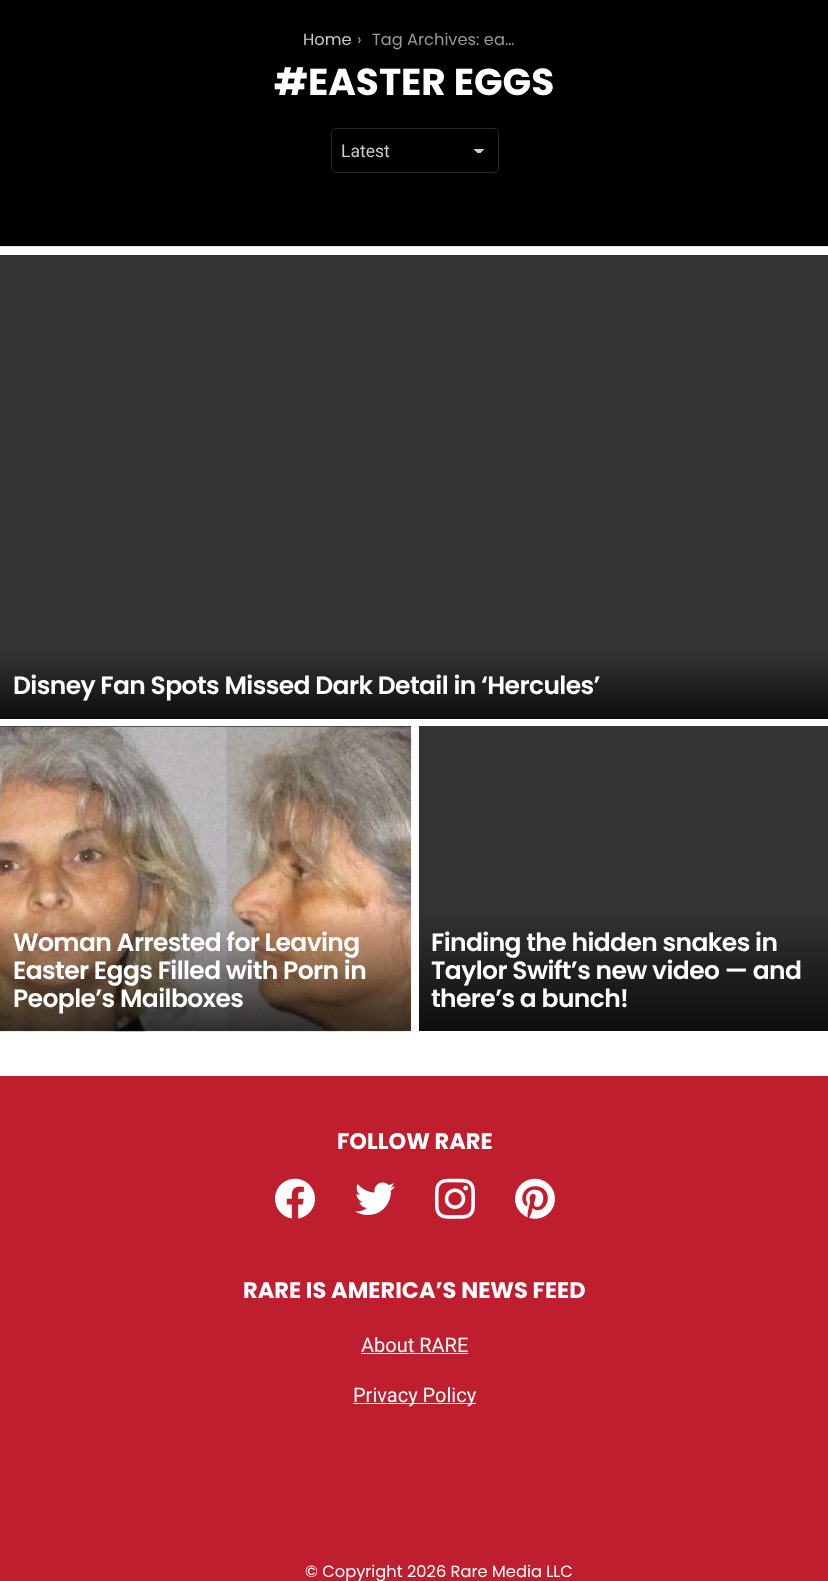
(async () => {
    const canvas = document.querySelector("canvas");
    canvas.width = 828;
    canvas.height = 1581;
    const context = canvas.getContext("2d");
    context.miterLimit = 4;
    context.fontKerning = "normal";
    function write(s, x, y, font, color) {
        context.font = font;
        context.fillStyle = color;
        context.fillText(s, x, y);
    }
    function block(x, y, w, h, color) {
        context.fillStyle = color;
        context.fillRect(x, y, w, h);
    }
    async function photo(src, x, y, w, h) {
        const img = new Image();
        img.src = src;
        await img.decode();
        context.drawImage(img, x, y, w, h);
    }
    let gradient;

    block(0, 0, 828, 1581, "rgb(255, 255, 255)");
    block(0, 0, 828, 246, "rgb(0, 0, 0)");
    block(0, 246, 828, 1, "rgb(230, 230, 230)");
    write("Home", 303, 45, "16.25px Poppins", "rgb(204, 204, 204)");
    write("›", 357, 45, "16.25px Poppins", "rgb(153, 153, 153)");
    write("Tag Archives: ea…", 372, 45, "16.25px Poppins", "rgb(153, 153, 153)");
    write("#EASTER EGGS", 274, 95, "bold 37.5px Poppins", "rgb(255, 255, 255)");
    gradient = context.createLinearGradient(479, 148, 485, 154);
    gradient.addColorStop(0.5, "rgb(204, 204, 204)");
    gradient.addColorStop(0.5, "rgb(0, 0, 0)");
    context.fillStyle = gradient;
    context.fillRect(479, 149, 6, 4);
    gradient = context.createLinearGradient(473, 154, 478, 148);
    gradient.addColorStop(0.5, "rgb(0, 0, 0)");
    gradient.addColorStop(0.5, "rgb(204, 204, 204)");
    context.fillStyle = gradient;
    context.fillRect(473, 149, 6, 4);
    context.beginPath();
    context.roundRect(331.5, 128.5, 167, 44, 4.5);
    context.strokeStyle = "rgb(38, 38, 38)";
    context.stroke();
    write("Latest", 341, 157, "17.5px Roboto", "rgb(204, 204, 204)");
    block(0, 255, 828, 398, "rgb(51, 51, 51)");
    gradient = context.createLinearGradient(414, 653, 414, 719);
    gradient.addColorStop(0, "rgb(51, 51, 51)");
    gradient.addColorStop(1, "rgb(13, 13, 13)");
    context.fillStyle = gradient;
    context.fillRect(0, 653, 828, 66);
    context.letterSpacing = "-0.6px";
    write("Disney Fan Spots Missed Dark Detail in ‘Hercules’", 13, 694, "600 25px Poppins", "rgb(255, 255, 255)");
    block(0, 726, 411, 1, "rgb(51, 51, 51)");
    await photo("media/1.png", 0, 726, 412, 306);
    write("Woman Arrested for Leaving", 13, 951, "600 25px Poppins", "rgb(255, 255, 255)");
    write("Easter Eggs Filled with Porn in", 13, 979, "600 25px Poppins", "rgb(255, 255, 255)");
    write("People’s Mailboxes", 13, 1007, "600 25px Poppins", "rgb(255, 255, 255)");
    block(419, 726, 409, 184, "rgb(51, 51, 51)");
    gradient = context.createLinearGradient(624, 910, 624, 1031);
    gradient.addColorStop(0, "rgb(51, 51, 51)");
    gradient.addColorStop(1, "rgb(13, 13, 13)");
    context.fillStyle = gradient;
    context.fillRect(419, 910, 409, 121);
    write("Finding the hidden snakes in", 431, 951, "600 25px Poppins", "rgb(255, 255, 255)");
    write("Taylor Swift’s new video — and", 431, 979, "600 25px Poppins", "rgb(255, 255, 255)");
    write("there’s a bunch!", 431, 1007, "600 25px Poppins", "rgb(255, 255, 255)");
    block(0, 1076, 828, 505, "rgb(190, 30, 45)");
    context.letterSpacing = "0px";
    write("FOLLOW RARE", 337, 1149, "bold 22.5px Poppins", "rgb(255, 255, 255)");
    await photo("media/2.png", 275, 1178, 40, 41);
    await photo("media/3.png", 355, 1182, 40, 33);
    await photo("media/4.png", 435, 1178, 40, 41);
    await photo("media/5.png", 515, 1178, 40, 41);
    write("RARE IS AMERICA’S NEWS FEED", 243, 1298, "bold 22.5px Poppins", "rgb(255, 255, 255)");
    write("About RARE", 361, 1352, "20px Roboto", "rgb(255, 255, 255)");
    block(361, 1353, 107, 1, "rgb(255, 255, 255)");
    block(353, 1403, 123, 1, "rgb(255, 255, 255)");
    write("Privacy Policy", 353, 1402, "20px Roboto", "rgb(255, 255, 255)");
    write("© Copyright 2026 Rare Media LLC", 305, 1577, "16.25px Poppins", "rgb(255, 255, 255)");
})();
